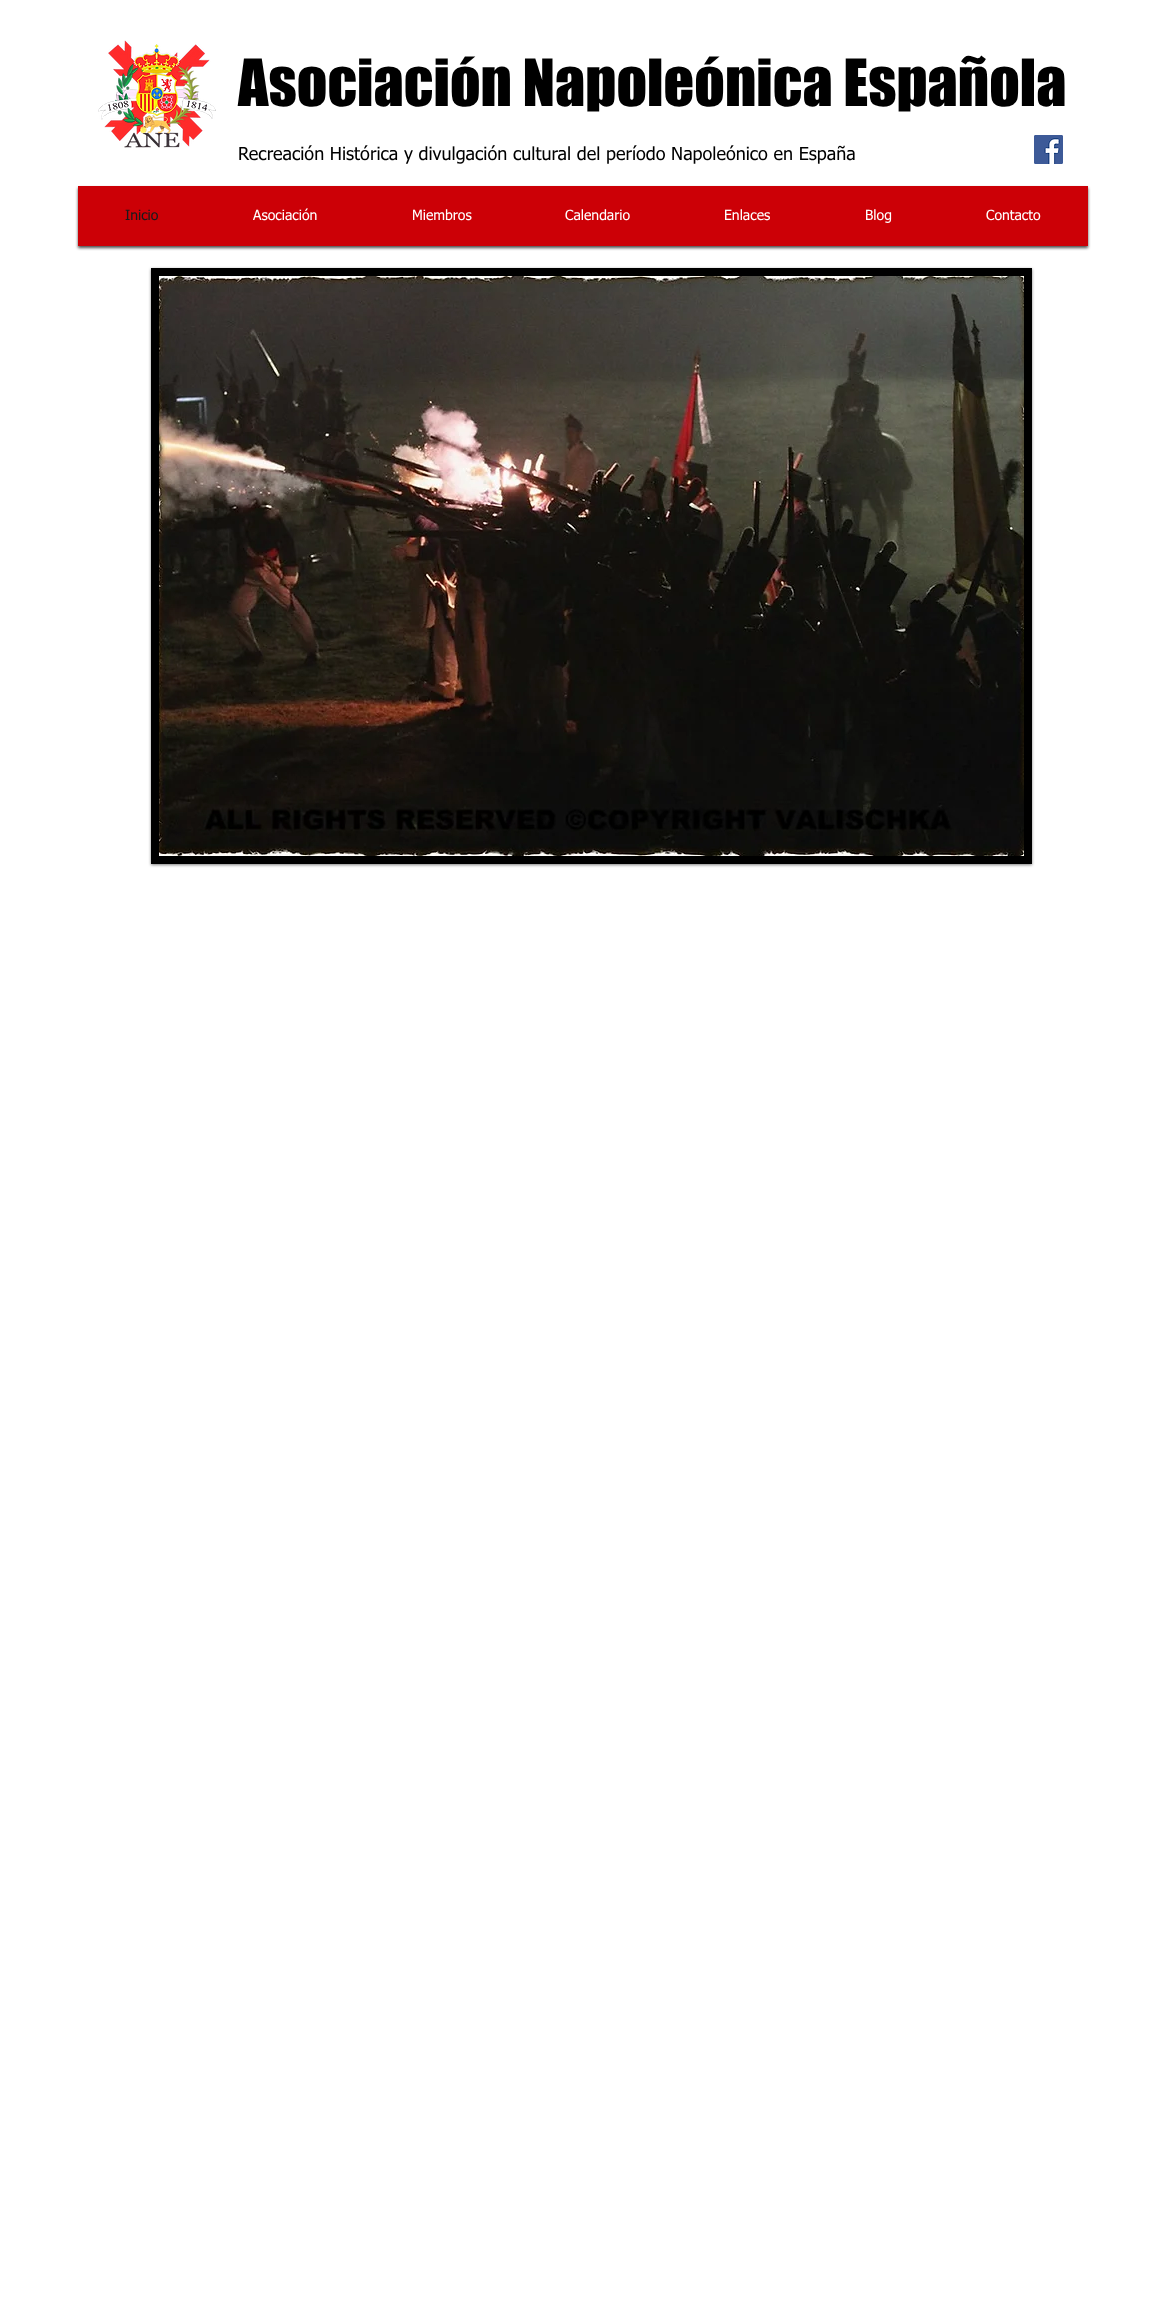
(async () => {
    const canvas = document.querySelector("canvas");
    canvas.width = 1165;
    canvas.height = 2312;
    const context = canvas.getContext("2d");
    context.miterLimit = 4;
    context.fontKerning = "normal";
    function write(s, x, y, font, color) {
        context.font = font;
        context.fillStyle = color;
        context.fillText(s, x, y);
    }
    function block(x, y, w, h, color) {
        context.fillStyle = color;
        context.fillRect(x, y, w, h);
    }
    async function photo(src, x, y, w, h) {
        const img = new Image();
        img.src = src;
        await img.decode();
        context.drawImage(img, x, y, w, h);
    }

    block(0, 0, 1165, 2312, "rgb(255, 255, 255)");
    await photo("media/1.png", 98, 40, 118, 108);
    write("Asociación Napoleónica Española", 238, 106, "60px 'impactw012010'", "rgb(0, 0, 0)");
    write("Recreación Histórica y divulgación cultural del período Napoleónico en España", 238, 160, "18px tahoma", "rgb(0, 0, 0)");
    await photo("media/2.png", 1034, 135, 29, 29);
    context.fillStyle = "rgba(0, 0, 0, 0.7)";
    context.filter = "blur(1.5px)";
    context.beginPath();
    context.rect(78, 188, 1010, 60);
    context.fill();
    context.filter = "none";
    block(78, 186, 1010, 60, "rgb(204, 0, 6)");
    write("Inicio", 125, 220, "14px tahoma", "rgb(24, 26, 28)");
    write("Asociación", 253, 220, "14px tahoma", "rgb(255, 255, 255)");
    write("Miembros", 412, 220, "14px tahoma", "rgb(255, 255, 255)");
    write("Calendario", 565, 220, "14px tahoma", "rgb(255, 255, 255)");
    write("Enlaces", 724, 220, "14px tahoma", "rgb(255, 255, 255)");
    write("Blog", 865, 220, "14px tahoma", "rgb(255, 255, 255)");
    write("Contacto", 986, 220, "14px tahoma", "rgb(255, 255, 255)");
    context.fillStyle = "rgba(0, 0, 0, 0.5)";
    context.filter = "blur(1.5px)";
    context.beginPath();
    context.rect(151, 269, 881, 596);
    context.fill();
    context.filter = "none";
    block(151, 268, 881, 596, "rgb(0, 0, 0)");
    await photo("media/3.png", 159, 276, 865, 580);
})();
